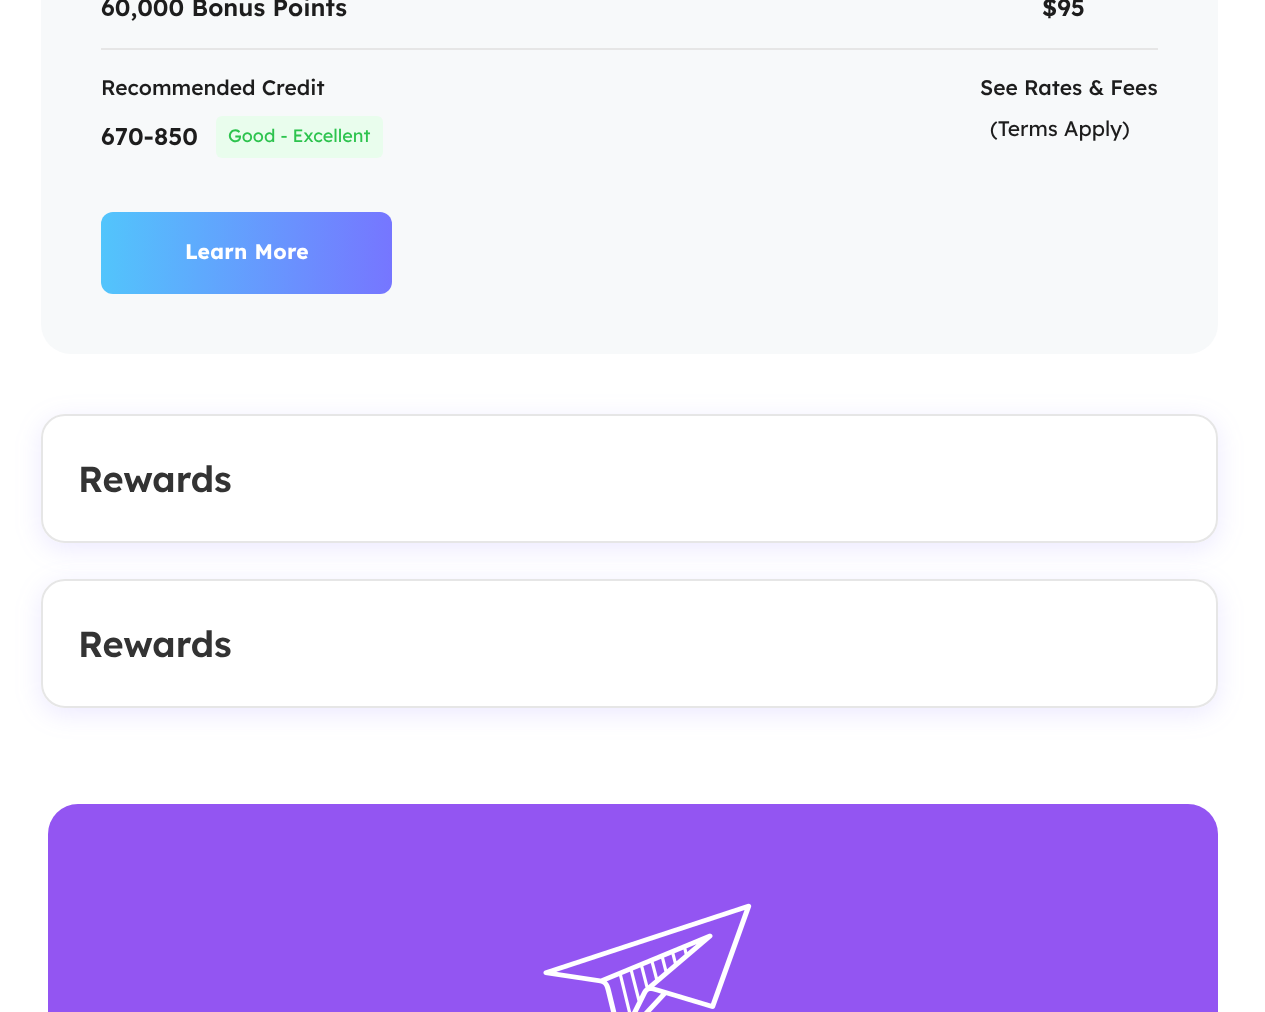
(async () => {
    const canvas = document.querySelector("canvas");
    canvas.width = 1265;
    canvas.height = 1012;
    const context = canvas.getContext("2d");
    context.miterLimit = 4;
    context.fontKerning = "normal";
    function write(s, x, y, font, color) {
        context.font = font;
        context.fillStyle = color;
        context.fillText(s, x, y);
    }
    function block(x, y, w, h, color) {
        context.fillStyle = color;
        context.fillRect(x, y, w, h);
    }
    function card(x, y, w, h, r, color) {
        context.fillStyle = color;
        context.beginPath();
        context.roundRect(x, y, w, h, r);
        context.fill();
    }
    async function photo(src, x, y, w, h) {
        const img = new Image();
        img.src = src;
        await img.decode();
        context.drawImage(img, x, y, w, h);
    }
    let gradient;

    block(0, 0, 1265, 1012, "rgb(255, 255, 255)");
    card(41, -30, 1177, 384, 30, "rgb(247, 249, 250)");
    write("60,000 Bonus Points", 101, 16, "600 24px Lexend", "rgb(29, 29, 29)");
    write("$95", 1042, 16, "600 24px Lexend", "rgb(29, 29, 29)");
    block(101, 48, 1057, 2, "rgb(230, 230, 230)");
    write("Recommended Credit", 101, 95, "500 21px Lexend", "rgb(29, 29, 29)");
    write("670-850", 101, 145, "600 24px Lexend", "rgb(29, 29, 29)");
    card(216, 116, 167, 42, 6, "rgb(233, 253, 237)");
    write("Good - Excellent", 228, 142, "18px Lexend", "rgb(45, 195, 78)");
    write("See Rates & Fees", 980, 95, "500 21px Lexend", "rgb(29, 29, 29)");
    write("(Terms Apply)", 990, 136, "21px Lexend", "rgb(29, 29, 29)");
    gradient = context.createLinearGradient(100, 250, 392, 255);
    gradient.addColorStop(0, "rgb(82, 197, 252)");
    gradient.addColorStop(1, "rgb(118, 118, 255)");
    context.fillStyle = gradient;
    context.beginPath();
    context.roundRect(101, 212, 291, 82, 12);
    context.fill();
    context.letterSpacing = "0.25px";
    write("Learn More", 185, 259, "bold 21px Lexend", "rgb(255, 255, 255)");
    context.save();
    context.beginPath();
    context.moveTo(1, 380);
    context.lineTo(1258, 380);
    context.lineTo(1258, 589);
    context.lineTo(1, 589);
    context.closePath();
    context.moveTo(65, 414);
    context.lineTo(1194, 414);
    context.bezierCurveTo(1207.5, 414, 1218, 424.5, 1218, 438);
    context.lineTo(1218, 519);
    context.bezierCurveTo(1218, 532.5, 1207.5, 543, 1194, 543);
    context.lineTo(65, 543);
    context.bezierCurveTo(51.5, 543, 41, 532.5, 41, 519);
    context.lineTo(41, 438);
    context.bezierCurveTo(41, 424.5, 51.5, 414, 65, 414);
    context.closePath();
    context.clip("evenodd");
    context.fillStyle = "rgba(123, 97, 255, 0.14)";
    context.filter = "blur(13px)";
    context.beginPath();
    context.roundRect(41, 420, 1177, 129, 24);
    context.fill();
    context.filter = "none";
    context.restore();
    context.beginPath();
    context.roundRect(42, 415, 1175, 127, 23);
    context.strokeStyle = "rgb(230, 230, 230)";
    context.lineWidth = 2;
    context.stroke();
    context.letterSpacing = "0px";
    write("Rewards", 78, 492, "600 36px Lexend", "rgb(51, 51, 51)");
    context.save();
    context.beginPath();
    context.moveTo(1, 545);
    context.lineTo(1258, 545);
    context.lineTo(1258, 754);
    context.lineTo(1, 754);
    context.closePath();
    context.moveTo(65, 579);
    context.lineTo(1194, 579);
    context.bezierCurveTo(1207.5, 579, 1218, 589.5, 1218, 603);
    context.lineTo(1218, 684);
    context.bezierCurveTo(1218, 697.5, 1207.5, 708, 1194, 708);
    context.lineTo(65, 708);
    context.bezierCurveTo(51.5, 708, 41, 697.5, 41, 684);
    context.lineTo(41, 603);
    context.bezierCurveTo(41, 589.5, 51.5, 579, 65, 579);
    context.closePath();
    context.clip("evenodd");
    context.fillStyle = "rgba(123, 97, 255, 0.14)";
    context.filter = "blur(13px)";
    context.beginPath();
    context.roundRect(41, 585, 1177, 129, 24);
    context.fill();
    context.filter = "none";
    context.restore();
    context.beginPath();
    context.roundRect(42, 580, 1175, 127, 23);
    context.stroke();
    write("Rewards", 78, 657, "600 36px Lexend", "rgb(51, 51, 51)");
    card(48, 804, 1170, 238, 30, "rgb(147, 85, 242)");
    await photo("media/1.png", 543, 903, 209, 109);
})();
